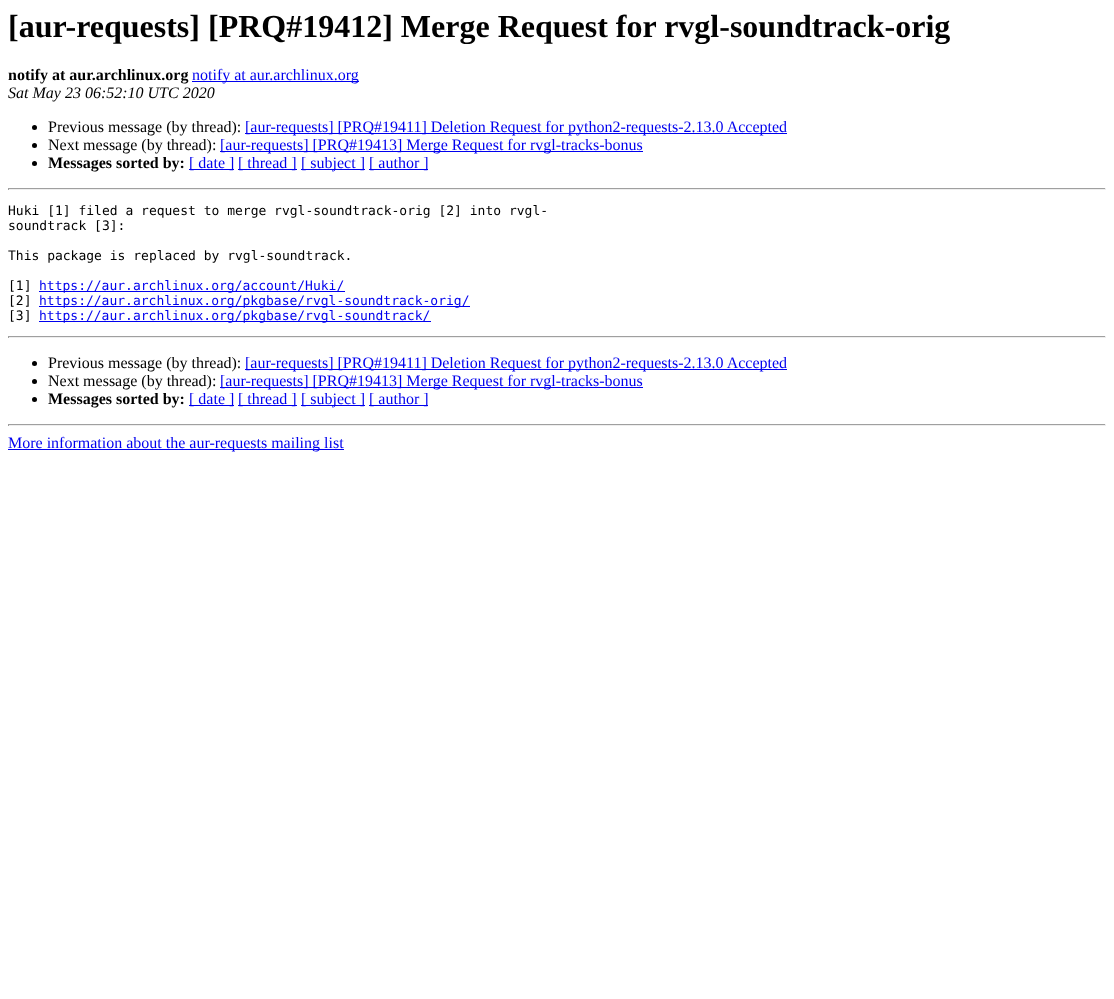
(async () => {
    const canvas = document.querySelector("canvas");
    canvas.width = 1114;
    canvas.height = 999;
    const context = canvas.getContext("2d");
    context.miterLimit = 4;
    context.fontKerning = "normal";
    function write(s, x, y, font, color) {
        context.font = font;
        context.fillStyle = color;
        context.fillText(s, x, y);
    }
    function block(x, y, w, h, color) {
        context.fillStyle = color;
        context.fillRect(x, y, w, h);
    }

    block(0, 0, 1114, 999, "rgb(255, 255, 255)");
    write("[aur-requests] [PRQ#19412] Merge Request for rvgl-soundtrack-orig", 8, 37, "bold 32px Liberation Serif", "rgb(0, 0, 0)");
    write("notify at aur.archlinux.org", 8, 80, "bold 16px Liberation Serif", "rgb(0, 0, 0)");
    block(192, 81, 167, 1, "rgb(0, 0, 238)");
    write("notify at aur.archlinux.org", 192, 80, "16px Liberation Serif", "rgb(0, 0, 238)");
    write("Sat May 23 06:52:10 UTC 2020", 8, 98, "italic 16px Liberation Serif", "rgb(0, 0, 0)");
    context.beginPath();
    context.arc(34.5, 127.5, 2.5, 0, Math.PI * 2);
    context.fill();
    write("Previous message (by thread):", 48, 132, "16px Liberation Serif", "rgb(0, 0, 0)");
    block(245, 133, 542, 1, "rgb(0, 0, 238)");
    write("[aur-requests] [PRQ#19411] Deletion Request for python2-requests-2.13.0 Accepted", 245, 132, "16px Liberation Serif", "rgb(0, 0, 238)");
    context.fillStyle = "rgb(0, 0, 0)";
    context.beginPath();
    context.arc(34.5, 145.5, 2.5, 0, Math.PI * 2);
    context.fill();
    write("Next message (by thread):", 48, 150, "16px Liberation Serif", "rgb(0, 0, 0)");
    block(220, 151, 423, 1, "rgb(0, 0, 238)");
    write("[aur-requests] [PRQ#19413] Merge Request for rvgl-tracks-bonus", 220, 150, "16px Liberation Serif", "rgb(0, 0, 238)");
    context.fillStyle = "rgb(0, 0, 0)";
    context.beginPath();
    context.arc(34.5, 163.5, 2.5, 0, Math.PI * 2);
    context.fill();
    write("Messages sorted by:", 48, 168, "bold 16px Liberation Serif", "rgb(0, 0, 0)");
    block(189, 169, 45, 1, "rgb(0, 0, 238)");
    write("[ date ]", 189, 168, "16px Liberation Serif", "rgb(0, 0, 238)");
    block(238, 169, 59, 1, "rgb(0, 0, 238)");
    write("[ thread ]", 238, 168, "16px Liberation Serif", "rgb(0, 0, 238)");
    block(301, 169, 64, 1, "rgb(0, 0, 238)");
    write("[ subject ]", 301, 168, "16px Liberation Serif", "rgb(0, 0, 238)");
    block(369, 169, 59, 1, "rgb(0, 0, 238)");
    write("[ author ]", 369, 168, "16px Liberation Serif", "rgb(0, 0, 238)");
    block(8, 188, 1098, 1, "rgb(159, 159, 159)");
    block(1105, 188, 1, 2, "rgb(238, 238, 238)");
    block(8, 189, 1098, 1, "rgb(238, 238, 238)");
    block(8, 188, 1, 2, "rgb(159, 159, 159)");
    write("Huki [1] filed a request to merge rvgl-soundtrack-orig [2] into rvgl-", 8, 215, "13px DejaVu Sans Mono", "rgb(0, 0, 0)");
    write("soundtrack [3]:", 8, 230, "13px DejaVu Sans Mono", "rgb(0, 0, 0)");
    write("This package is replaced by rvgl-soundtrack.", 8, 260, "13px DejaVu Sans Mono", "rgb(0, 0, 0)");
    write("[1]", 8, 290, "13px DejaVu Sans Mono", "rgb(0, 0, 0)");
    block(39, 291, 306, 1, "rgb(0, 0, 238)");
    write("https://aur.archlinux.org/account/Huki/", 39, 290, "13px DejaVu Sans Mono", "rgb(0, 0, 238)");
    write("[2]", 8, 305, "13px DejaVu Sans Mono", "rgb(0, 0, 0)");
    block(39, 306, 431, 1, "rgb(0, 0, 238)");
    write("https://aur.archlinux.org/pkgbase/rvgl-soundtrack-orig/", 39, 305, "13px DejaVu Sans Mono", "rgb(0, 0, 238)");
    write("[3]", 8, 320, "13px DejaVu Sans Mono", "rgb(0, 0, 0)");
    block(39, 321, 392, 1, "rgb(0, 0, 238)");
    write("https://aur.archlinux.org/pkgbase/rvgl-soundtrack/", 39, 320, "13px DejaVu Sans Mono", "rgb(0, 0, 238)");
    block(8, 336, 1098, 1, "rgb(159, 159, 159)");
    block(1105, 336, 1, 2, "rgb(238, 238, 238)");
    block(8, 337, 1098, 1, "rgb(238, 238, 238)");
    block(8, 336, 1, 2, "rgb(159, 159, 159)");
    context.fillStyle = "rgb(0, 0, 0)";
    context.beginPath();
    context.arc(34.5, 363.5, 2.5, 0, Math.PI * 2);
    context.fill();
    write("Previous message (by thread):", 48, 368, "16px Liberation Serif", "rgb(0, 0, 0)");
    block(245, 369, 542, 1, "rgb(0, 0, 238)");
    write("[aur-requests] [PRQ#19411] Deletion Request for python2-requests-2.13.0 Accepted", 245, 368, "16px Liberation Serif", "rgb(0, 0, 238)");
    context.fillStyle = "rgb(0, 0, 0)";
    context.beginPath();
    context.arc(34.5, 381.5, 2.5, 0, Math.PI * 2);
    context.fill();
    write("Next message (by thread):", 48, 386, "16px Liberation Serif", "rgb(0, 0, 0)");
    block(220, 387, 423, 1, "rgb(0, 0, 238)");
    write("[aur-requests] [PRQ#19413] Merge Request for rvgl-tracks-bonus", 220, 386, "16px Liberation Serif", "rgb(0, 0, 238)");
    context.fillStyle = "rgb(0, 0, 0)";
    context.beginPath();
    context.arc(34.5, 399.5, 2.5, 0, Math.PI * 2);
    context.fill();
    write("Messages sorted by:", 48, 404, "bold 16px Liberation Serif", "rgb(0, 0, 0)");
    block(189, 405, 45, 1, "rgb(0, 0, 238)");
    write("[ date ]", 189, 404, "16px Liberation Serif", "rgb(0, 0, 238)");
    block(238, 405, 59, 1, "rgb(0, 0, 238)");
    write("[ thread ]", 238, 404, "16px Liberation Serif", "rgb(0, 0, 238)");
    block(301, 405, 64, 1, "rgb(0, 0, 238)");
    write("[ subject ]", 301, 404, "16px Liberation Serif", "rgb(0, 0, 238)");
    block(369, 405, 59, 1, "rgb(0, 0, 238)");
    write("[ author ]", 369, 404, "16px Liberation Serif", "rgb(0, 0, 238)");
    block(8, 424, 1098, 1, "rgb(159, 159, 159)");
    block(1105, 424, 1, 2, "rgb(238, 238, 238)");
    block(8, 425, 1098, 1, "rgb(238, 238, 238)");
    block(8, 424, 1, 2, "rgb(159, 159, 159)");
    block(8, 449, 336, 1, "rgb(0, 0, 238)");
    write("More information about the aur-requests mailing list", 8, 448, "16px Liberation Serif", "rgb(0, 0, 238)");
})();
